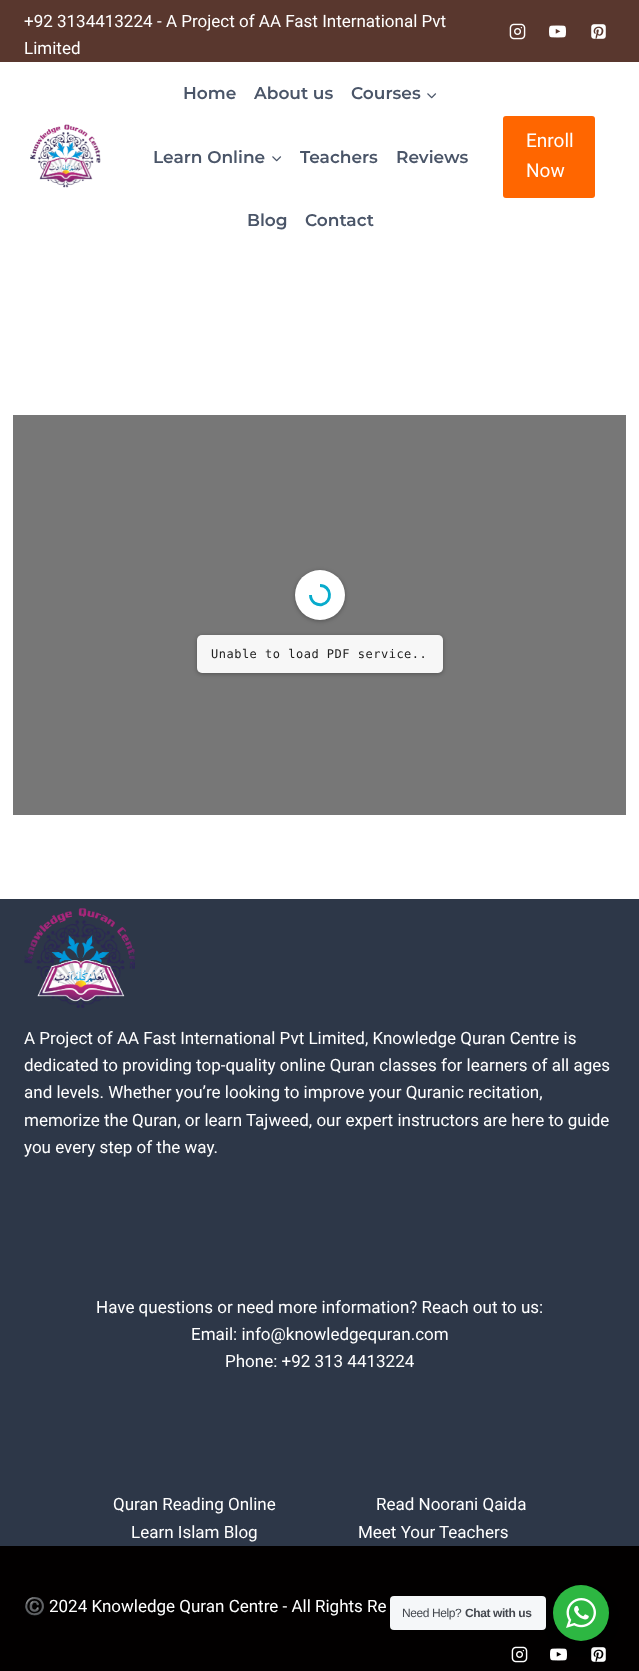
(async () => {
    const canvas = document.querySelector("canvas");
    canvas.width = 639;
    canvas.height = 1671;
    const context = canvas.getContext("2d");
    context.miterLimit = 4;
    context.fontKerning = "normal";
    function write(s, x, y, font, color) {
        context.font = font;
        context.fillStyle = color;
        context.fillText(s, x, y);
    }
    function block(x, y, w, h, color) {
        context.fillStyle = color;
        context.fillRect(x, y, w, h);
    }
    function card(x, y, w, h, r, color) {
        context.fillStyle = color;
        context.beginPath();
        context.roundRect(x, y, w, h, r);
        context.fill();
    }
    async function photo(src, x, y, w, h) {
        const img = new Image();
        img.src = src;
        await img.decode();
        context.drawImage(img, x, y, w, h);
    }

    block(0, 0, 639, 1671, "rgb(255, 255, 255)");
    block(0, 0, 639, 62, "rgb(89, 55, 46)");
    write("+92 3134413224", 24, 27, "17px Roboto", "rgb(255, 255, 255)");
    write("- A Project of AA Fast International Pvt", 157, 27, "17px Roboto", "rgb(255, 255, 255)");
    write("Limited", 24, 54, "17px Roboto", "rgb(255, 255, 255)");
    await photo("media/1.png", 509, 23, 17, 17);
    await photo("media/2.png", 549, 25, 17, 13);
    await photo("media/3.png", 591, 24, 15, 15);
    await photo("media/4.png", 30, 124, 71, 64);
    write("Home", 183, 99, "100 17px Montserrat", "rgb(74, 85, 104)");
    write("About us", 254, 99, "100 17px Montserrat", "rgb(74, 85, 104)");
    write("Courses", 351, 99, "100 17px Montserrat", "rgb(74, 85, 104)");
    await photo("media/5.png", 427, 93, 10, 6);
    write("Learn Online", 153, 163, "100 17px Montserrat", "rgb(74, 85, 104)");
    await photo("media/5.png", 272, 156, 10, 6);
    write("Teachers", 300, 163, "100 17px Montserrat", "rgb(74, 85, 104)");
    write("Reviews", 396, 163, "100 17px Montserrat", "rgb(74, 85, 104)");
    write("Blog", 247, 226, "100 17px Montserrat", "rgb(74, 85, 104)");
    write("Contact", 305, 226, "100 17px Montserrat", "rgb(74, 85, 104)");
    card(503, 116, 92, 82, 3, "rgb(255, 102, 0)");
    write("Enroll", 526, 147, "19px Roboto", "rgb(255, 255, 255)");
    write("Now", 526, 177, "19px Roboto", "rgb(255, 255, 255)");
    block(13, 415, 613, 400, "rgb(119, 119, 119)");
    context.fillStyle = "rgba(0, 0, 0, 0.3)";
    context.filter = "blur(2px)";
    context.beginPath();
    context.roundRect(295, 571, 50, 50, 25);
    context.fill();
    context.filter = "none";
    context.fillStyle = "rgb(255, 255, 255)";
    context.beginPath();
    context.arc(320, 595, 25, 0, Math.PI * 2);
    context.fill();
    context.beginPath();
    context.moveTo(320, 585.5);
    context.bezierCurveTo(331.5, 585.5, 333, 602, 322, 604.5);
    context.bezierCurveTo(319.5, 605, 317, 604.5, 314.5, 603);
    context.bezierCurveTo(312, 601, 310.5, 598, 310.5, 595);
    context.strokeStyle = "rgb(7, 171, 204)";
    context.lineWidth = 2.9;
    context.stroke();
    context.fillStyle = "rgba(0, 0, 0, 0.3)";
    context.filter = "blur(2px)";
    context.beginPath();
    context.roundRect(197, 636, 246, 38, 5);
    context.fill();
    context.filter = "none";
    card(197, 635, 246, 38, 5, "rgb(247, 247, 247)");
    context.letterSpacing = "0.5px";
    write("Unable to load PDF service..", 211, 658, "12px DejaVu Sans Mono", "rgb(34, 34, 34)");
    block(0, 899, 639, 647, "rgb(45, 55, 72)");
    await photo("media/6.png", 24, 908, 111, 100);
    context.letterSpacing = "0px";
    write("A Project of AA Fast International Pvt Limited, Knowledge Quran Centre is", 24, 1044, "17px Roboto", "rgb(255, 255, 255)");
    write("dedicated to providing top-quality online Quran classes for learners of all ages", 24, 1071, "17px Roboto", "rgb(255, 255, 255)");
    write("and levels. Whether you’re looking to improve your Quranic recitation,", 24, 1098, "17px Roboto", "rgb(255, 255, 255)");
    write("memorize the Quran, or learn Tajweed, our expert instructors are here to guide", 24, 1126, "17px Roboto", "rgb(255, 255, 255)");
    write("you every step of the way.", 24, 1153, "17px Roboto", "rgb(255, 255, 255)");
    write("Have questions or need more information? Reach out to us:", 96, 1313, "17px Roboto", "rgb(255, 255, 255)");
    write("Email: info@knowledgequran.com", 191, 1340, "17px Roboto", "rgb(255, 255, 255)");
    write("Phone: +92 313 4413224", 225, 1367, "17px Roboto", "rgb(255, 255, 255)");
    write("Quran Reading Online", 113, 1510, "17px Roboto", "rgb(255, 255, 255)");
    write("Read Noorani Qaida", 376, 1510, "17px Roboto", "rgb(255, 255, 255)");
    write("Learn Islam Blog", 131, 1538, "17px Roboto", "rgb(255, 255, 255)");
    write("Meet Your Teachers", 358, 1538, "17px Roboto", "rgb(255, 255, 255)");
    block(0, 1546, 639, 125, "rgb(2, 0, 0)");
    write("©️", 24, 1612, "17px Noto Color Emoji", "rgb(255, 255, 255)");
    write("2024 Knowledge Quran Centre - All Rights Re", 49, 1612, "17px Roboto", "rgb(255, 255, 255)");
    await photo("media/7.png", 511, 1646, 17, 17);
    await photo("media/8.png", 550, 1648, 17, 13);
    await photo("media/9.png", 591, 1647, 15, 15);
    context.fillStyle = "rgba(0, 0, 0, 0.14)";
    context.filter = "blur(4px)";
    context.beginPath();
    context.roundRect(551, 1589, 60, 60, 30);
    context.fill();
    context.filter = "none";
    card(390, 1596, 156, 34, 4, "rgb(245, 247, 249)");
    context.letterSpacing = "-0.4px";
    write("Need Help?", 402, 1617, "12px Liberation Sans", "rgb(67, 71, 78)");
    write("Chat with us", 465, 1617, "bold 12px Liberation Sans", "rgb(67, 71, 78)");
    context.fillStyle = "rgb(45, 183, 66)";
    context.beginPath();
    context.arc(581, 1613, 28, 0, Math.PI * 2);
    context.fill();
    await photo("media/10.png", 566, 1598, 30, 30);
})();
